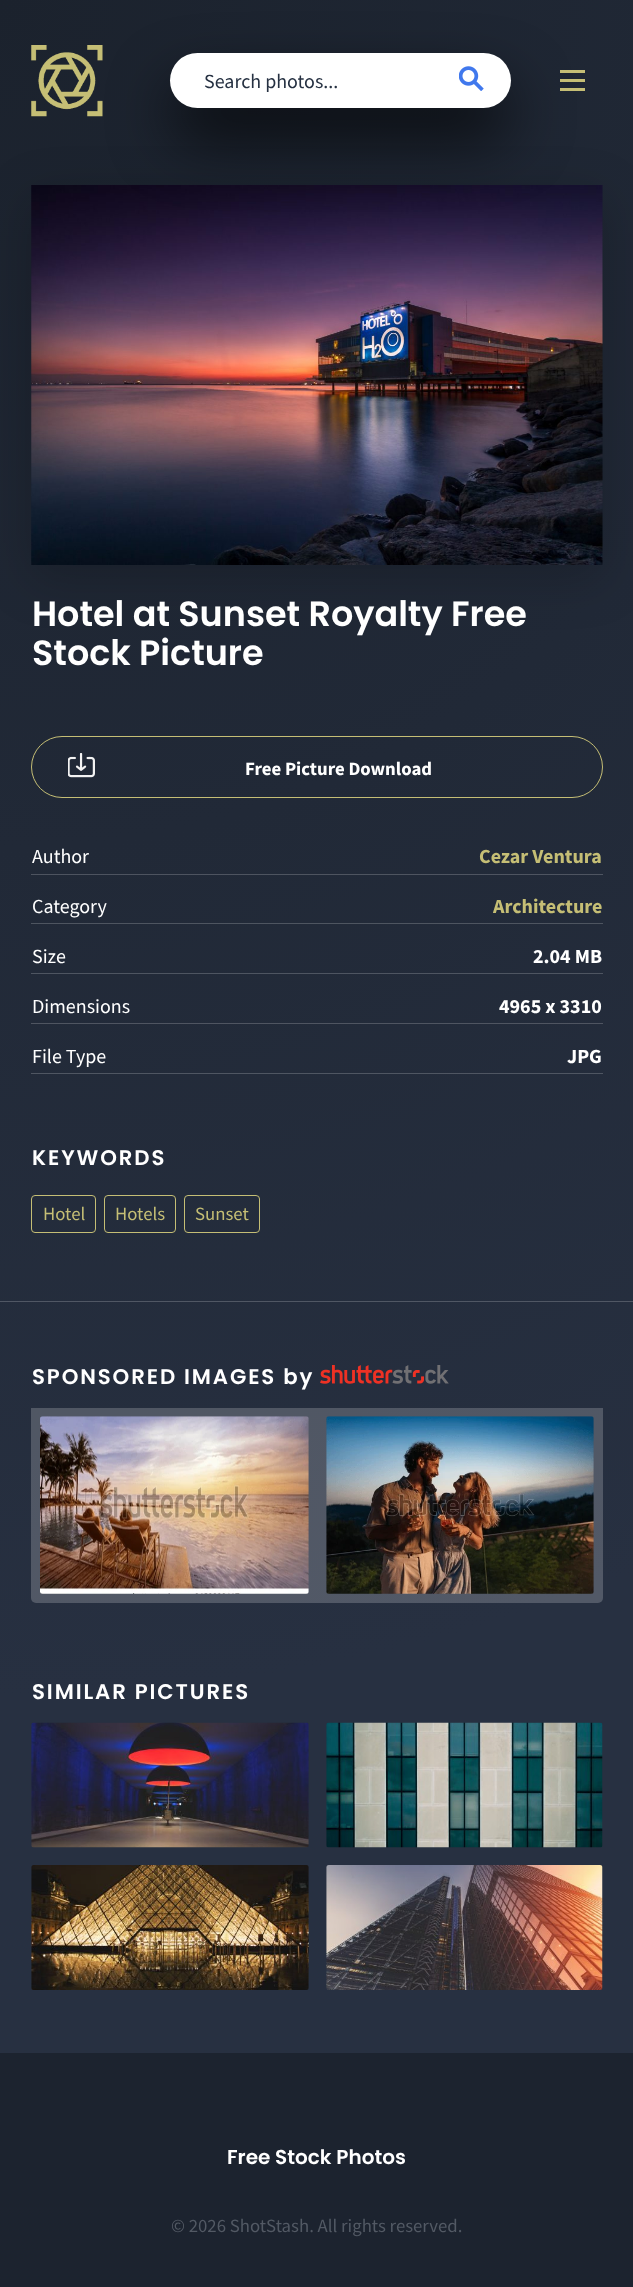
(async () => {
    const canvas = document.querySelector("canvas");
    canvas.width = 633;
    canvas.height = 2287;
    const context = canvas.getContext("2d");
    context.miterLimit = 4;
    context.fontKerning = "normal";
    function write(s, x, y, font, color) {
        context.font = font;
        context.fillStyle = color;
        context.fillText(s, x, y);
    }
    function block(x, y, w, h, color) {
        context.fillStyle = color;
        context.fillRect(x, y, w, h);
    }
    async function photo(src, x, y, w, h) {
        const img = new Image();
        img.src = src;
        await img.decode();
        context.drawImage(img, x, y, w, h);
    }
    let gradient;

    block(0, 0, 633, 2287, "rgb(255, 255, 255)");
    gradient = context.createRadialGradient(0, 0, 0, 0, 0, 3393);
    gradient.addColorStop(0, "rgb(27, 34, 45)");
    gradient.addColorStop(0.5, "rgb(39, 48, 65)");
    context.fillStyle = gradient;
    context.fillRect(0, 0, 633, 2053);
    gradient = context.createRadialGradient(0, 0, 0, 0, 0, 3393);
    gradient.addColorStop(0, "rgb(73, 78, 87)");
    gradient.addColorStop(0.5, "rgb(82, 89, 103)");
    context.fillStyle = gradient;
    context.fillRect(31, 874, 572, 1);
    await photo("media/1.png", 31, 45, 72, 72);
    context.fillStyle = "rgba(0, 0, 0, 0.2)";
    context.filter = "blur(25px)";
    context.beginPath();
    context.rect(31, 198, 572, 380);
    context.fill();
    context.filter = "none";
    await photo("media/3.png", 31, 185, 572, 380);
    context.fillStyle = "rgba(0, 0, 0, 0.7)";
    context.filter = "blur(31px)";
    context.beginPath();
    context.roundRect(170, 84, 341, 55, 27.5);
    context.fill();
    context.filter = "none";
    context.fillStyle = "rgb(255, 255, 255)";
    context.beginPath();
    context.roundRect(170, 53, 258, 55, [27.5, 0, 0, 27.5]);
    context.fill();
    write("Search photos...", 204, 88, "20px Source Sans Pro", "rgb(38, 49, 66)");
    context.fillStyle = "rgb(255, 255, 255)";
    context.beginPath();
    context.roundRect(428, 53, 83, 55, [0, 27.5, 27.5, 0]);
    context.fill();
    await photo("media/2.png", 459, 66, 25, 25);
    block(560, 79, 25, 3, "rgb(197, 190, 117)");
    block(560, 70, 25, 3, "rgb(197, 190, 117)");
    block(560, 88, 25, 3, "rgb(197, 190, 117)");
    block(0, 1301, 633, 1, "rgb(80, 87, 100)");
    write("Hotel at Sunset Royalty Free", 32, 626, "600 35px Poppins", "rgb(255, 255, 255)");
    write("Stock Picture", 32, 665, "600 35px Poppins", "rgb(255, 255, 255)");
    await photo("media/4.png", 68, 753, 27, 25);
    context.beginPath();
    context.roundRect(31.5, 736.5, 571, 61, 30.5);
    context.strokeStyle = "rgb(197, 190, 117)";
    context.stroke();
    write("Free Picture Download", 245, 775, "bold 18.75px Source Sans Pro", "rgb(255, 255, 255)");
    write("Author", 32, 863, "20px Source Sans Pro", "rgb(255, 255, 255)");
    write("Cezar Ventura", 479, 863, "bold 20px Source Sans Pro", "rgb(197, 190, 117)");
    block(31, 923, 572, 1, "rgb(78, 85, 96)");
    write("Category", 32, 913, "20px Source Sans Pro", "rgb(255, 255, 255)");
    write("Architecture", 493, 913, "bold 20px Source Sans Pro", "rgb(197, 190, 117)");
    block(31, 973, 572, 1, "rgb(78, 85, 97)");
    write("Size", 32, 963, "20px Source Sans Pro", "rgb(255, 255, 255)");
    write("2.04 MB", 533, 963, "bold 20px Source Sans Pro", "rgb(255, 255, 255)");
    block(31, 1023, 572, 1, "rgb(79, 85, 97)");
    write("Dimensions", 32, 1013, "20px Source Sans Pro", "rgb(255, 255, 255)");
    write("4965 x 3310", 499, 1013, "bold 20px Source Sans Pro", "rgb(255, 255, 255)");
    block(31, 1073, 572, 1, "rgb(79, 86, 98)");
    write("File Type", 32, 1063, "20px Source Sans Pro", "rgb(255, 255, 255)");
    write("JPG", 567, 1063, "bold 20px Source Sans Pro", "rgb(255, 255, 255)");
    context.letterSpacing = "1.9px";
    write("KEYWORDS", 32, 1165, "600 21.25px Poppins", "rgb(255, 255, 255)");
    context.beginPath();
    context.roundRect(31.5, 1195.5, 64, 37, 3.5);
    context.stroke();
    context.letterSpacing = "0px";
    write("Hotel", 43, 1220, "18.75px Source Sans Pro", "rgb(197, 190, 117)");
    context.beginPath();
    context.roundRect(104.5, 1195.5, 71, 37, 3.5);
    context.stroke();
    write("Hotels", 115, 1220, "18.75px Source Sans Pro", "rgb(197, 190, 117)");
    context.beginPath();
    context.roundRect(184.5, 1195.5, 75, 37, 3.5);
    context.stroke();
    write("Sunset", 195, 1220, "18.75px Source Sans Pro", "rgb(197, 190, 117)");
    context.letterSpacing = "1.9px";
    write("SPONSORED IMAGES by", 32, 1384, "600 21.25px Poppins", "rgb(255, 255, 255)");
    await photo("media/5.png", 320, 1365, 129, 19);
    context.fillStyle = "rgba(255, 255, 255, 0.2)";
    context.beginPath();
    context.roundRect(31, 1408, 572, 195, [0, 0, 5, 5]);
    context.fill();
    await photo("media/6.png", 40, 1416, 269, 178);
    await photo("media/7.png", 326, 1416, 268, 178);
    write("SIMILAR PICTURES", 32, 1699, "600 21.25px Poppins", "rgb(255, 255, 255)");
    await photo("media/8.png", 31, 1722, 278, 126);
    await photo("media/9.png", 326, 1722, 277, 126);
    await photo("media/10.png", 31, 1865, 278, 125);
    await photo("media/11.png", 326, 1865, 277, 125);
    block(0, 2053, 633, 234, "rgb(28, 35, 47)");
    context.letterSpacing = "0px";
    write("Free Stock Photos", 227, 2164, "600 20px Poppins", "rgb(255, 255, 255)");
    write("© 2026 ShotStash. All rights reserved.", 171, 2232, "18.75px Source Sans Pro", "rgb(82, 89, 100)");
})();
